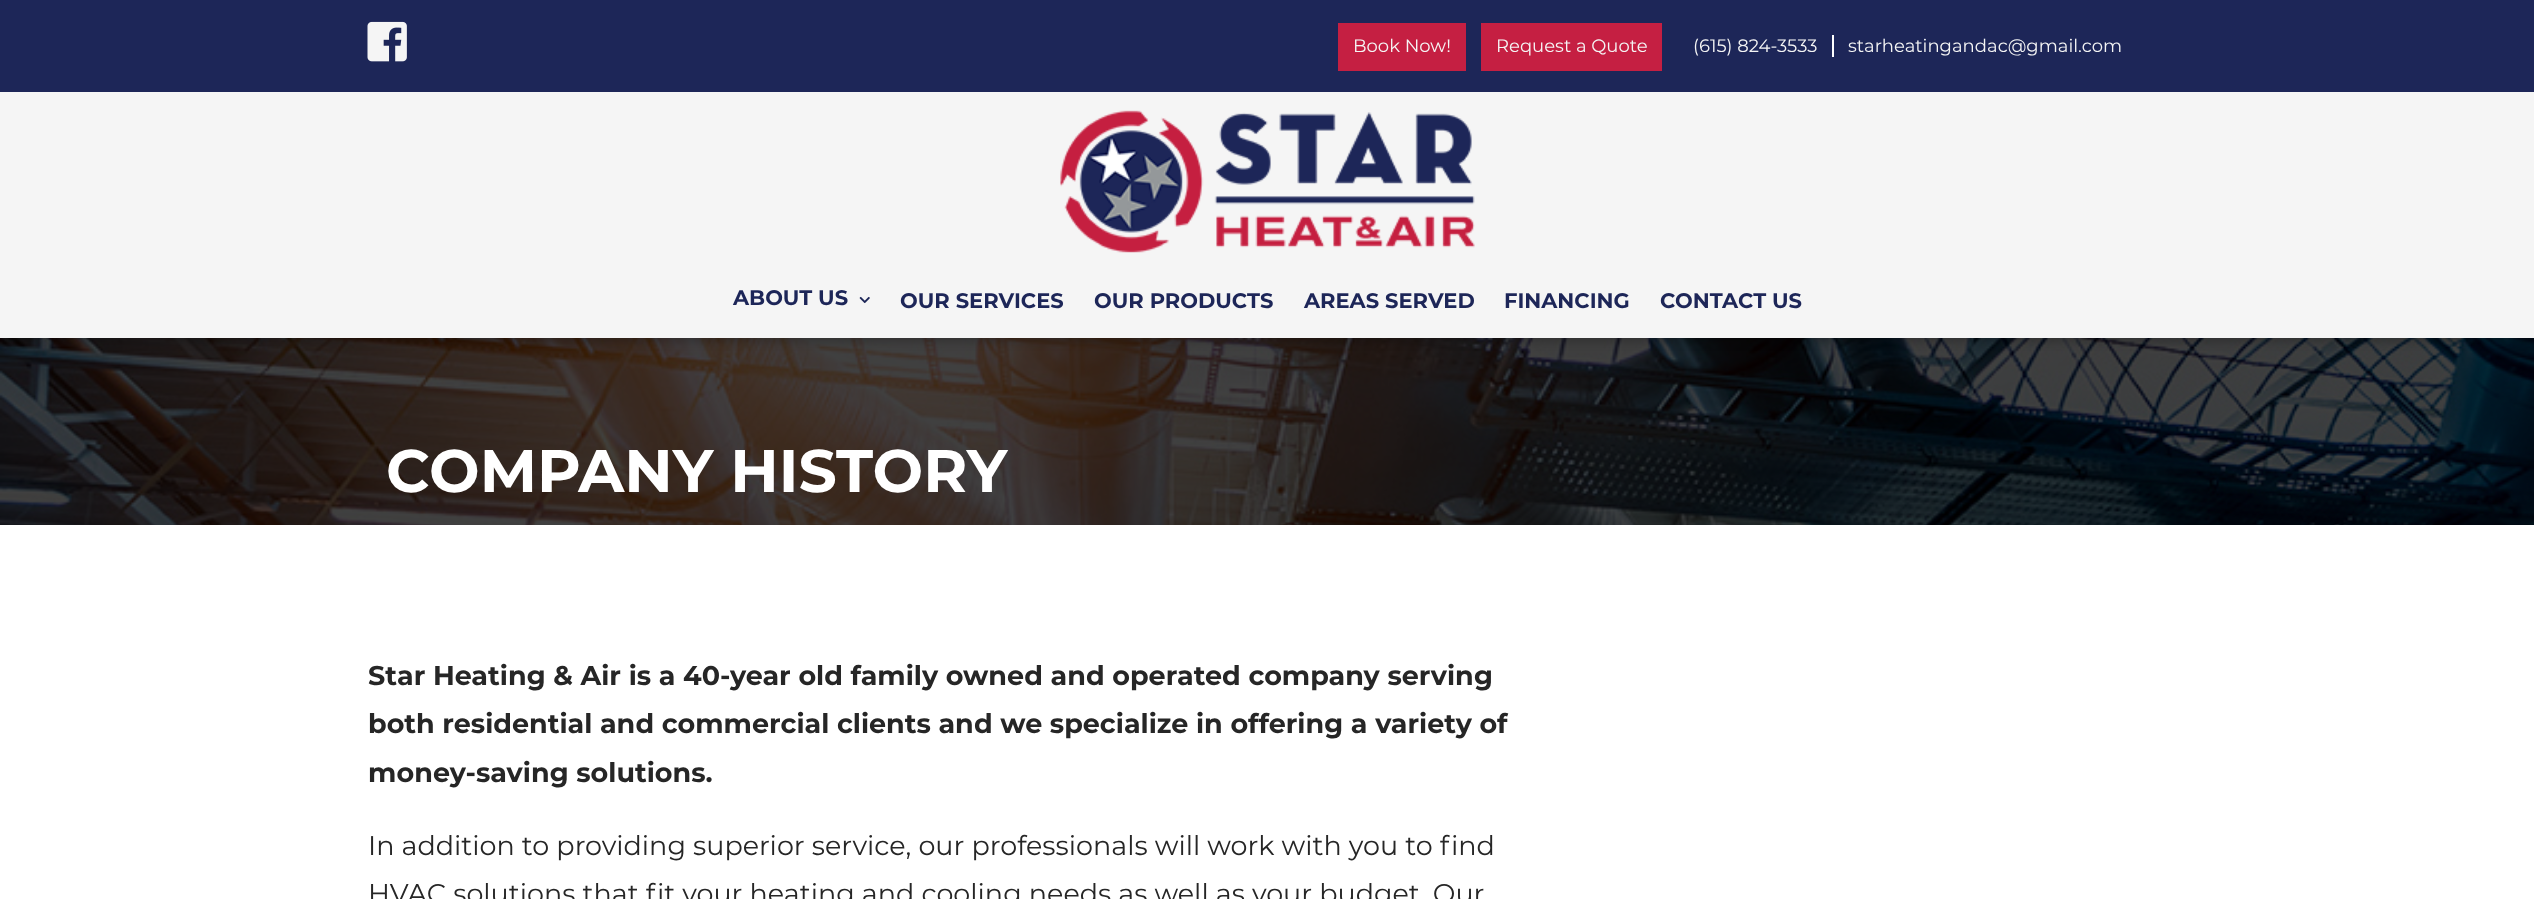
(async () => {
    const canvas = document.querySelector("canvas");
    canvas.width = 2534;
    canvas.height = 899;
    const context = canvas.getContext("2d");
    context.miterLimit = 4;
    context.fontKerning = "normal";
    function write(s, x, y, font, color) {
        context.font = font;
        context.fillStyle = color;
        context.fillText(s, x, y);
    }
    function block(x, y, w, h, color) {
        context.fillStyle = color;
        context.fillRect(x, y, w, h);
    }
    async function photo(src, x, y, w, h) {
        const img = new Image();
        img.src = src;
        await img.decode();
        context.drawImage(img, x, y, w, h);
    }

    block(0, 0, 2534, 899, "rgb(255, 255, 255)");
    await photo("media/1.png", 0, 338, 2534, 187);
    block(0, 338, 2534, 187, "rgba(0, 0, 0, 0.75)");
    context.fillStyle = "rgba(0, 0, 0, 0.2)";
    context.filter = "blur(4.5px)";
    context.beginPath();
    context.rect(0, 5, 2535, 337);
    context.fill();
    context.filter = "none";
    block(0, 92, 2534, 246, "rgb(245, 245, 245)");
    block(0, 0, 2534, 92, "rgb(29, 38, 88)");
    await photo("media/2.png", 367, 21, 40, 41);
    block(1338, 23, 128, 48, "rgb(197, 31, 66)");
    write("Book Now!", 1353, 52, "18px Montserrat", "rgb(245, 245, 245)");
    block(1481, 23, 181, 48, "rgb(197, 31, 66)");
    write("Request a Quote", 1496, 52, "18px Montserrat", "rgb(245, 245, 245)");
    write("(615) 824-3533", 1693, 52, "18px Montserrat", "rgb(245, 245, 245)");
    block(1832, 35, 2, 22, "rgb(255, 255, 255)");
    write("starheatingandac@gmail.com", 1848, 52, "18px Montserrat", "rgb(245, 245, 245)");
    await photo("media/3.png", 1060, 110, 415, 143);
    write("ABOUT US", 733, 305, "bold 21px Montserrat", "rgb(29, 38, 88)");
    await photo("media/4.png", 859, 296, 11, 8);
    write("OUR SERVICES", 900, 308, "bold 21px Montserrat", "rgb(29, 38, 88)");
    write("OUR PRODUCTS", 1094, 308, "bold 21px Montserrat", "rgb(29, 38, 88)");
    write("AREAS SERVED", 1304, 308, "bold 21px Montserrat", "rgb(29, 38, 88)");
    write("FINANCING", 1504, 308, "bold 21px Montserrat", "rgb(29, 38, 88)");
    write("CONTACT US", 1660, 308, "bold 21px Montserrat", "rgb(29, 38, 88)");
    write("COMPANY HISTORY", 386, 492, "bold 60px Montserrat", "rgb(255, 255, 255)");
    write("Star Heating & Air is a 40-year old family owned and operated company serving", 368, 685, "bold 27px Montserrat", "rgb(38, 38, 38)");
    write("both residential and commercial clients and we specialize in offering a variety of", 368, 733, "bold 27px Montserrat", "rgb(38, 38, 38)");
    write("money-saving solutions.", 368, 782, "bold 27px Montserrat", "rgb(38, 38, 38)");
    write("In addition to providing superior service, our professionals will work with you to find", 368, 855, "27px Montserrat", "rgb(38, 38, 38)");
    write("HVAC solutions that fit your heating and cooling needs as well as your budget. Our", 368, 903, "27px Montserrat", "rgb(38, 38, 38)");
})();
